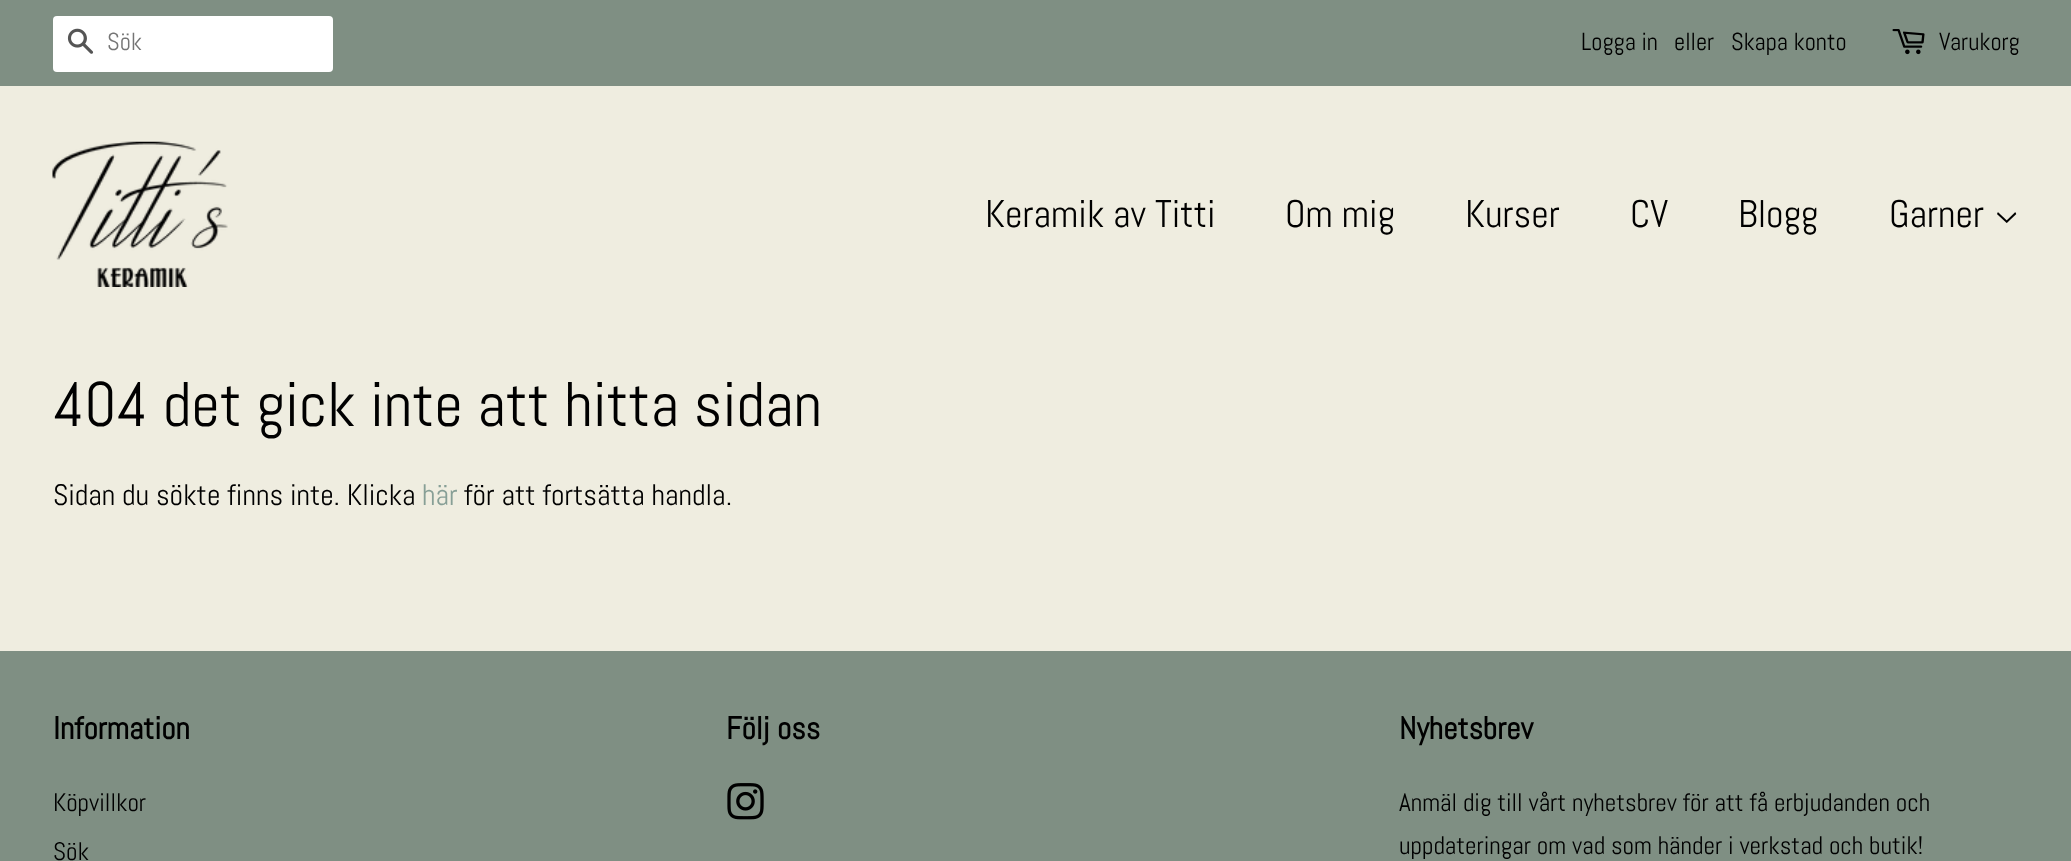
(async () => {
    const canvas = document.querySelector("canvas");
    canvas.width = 2071;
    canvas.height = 861;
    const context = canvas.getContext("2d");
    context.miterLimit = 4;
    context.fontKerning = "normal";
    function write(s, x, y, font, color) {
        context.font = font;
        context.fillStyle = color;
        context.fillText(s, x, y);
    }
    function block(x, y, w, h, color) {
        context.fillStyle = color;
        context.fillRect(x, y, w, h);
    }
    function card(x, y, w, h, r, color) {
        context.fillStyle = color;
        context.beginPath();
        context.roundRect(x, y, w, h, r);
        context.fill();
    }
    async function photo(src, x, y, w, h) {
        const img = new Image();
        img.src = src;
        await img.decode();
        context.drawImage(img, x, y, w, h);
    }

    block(0, 0, 2071, 861, "rgb(239, 237, 224)");
    block(0, 0, 2071, 86, "rgb(127, 143, 131)");
    card(53, 16, 280, 56, 4, "rgb(255, 255, 255)");
    await photo("media/1.png", 67, 28, 27, 26);
    write("Sök", 107, 50, "24.5px Abel", "rgb(117, 117, 117)");
    write("Logga in", 1581, 50, "24.5px Abel", "rgb(0, 0, 0)");
    write("eller", 1674, 50, "24.5px Abel", "rgb(0, 0, 0)");
    write("Skapa konto", 1731, 50, "24.5px Abel", "rgb(0, 0, 0)");
    await photo("media/2.png", 1892, 29, 33, 26);
    write("Varukorg", 1939, 50, "24.5px Abel", "rgb(0, 0, 0)");
    await photo("media/3.png", 52, 141, 176, 146);
    write("Keramik av Titti", 985, 227, "38.5px Abel", "rgb(0, 0, 0)");
    write("Om mig", 1285, 227, "38.5px Abel", "rgb(0, 0, 0)");
    write("Kurser", 1465, 227, "38.5px Abel", "rgb(0, 0, 0)");
    write("CV", 1630, 227, "38.5px Abel", "rgb(0, 0, 0)");
    write("Blogg", 1738, 227, "38.5px Abel", "rgb(0, 0, 0)");
    write("Garner", 1889, 227, "38.5px Abel", "rgb(0, 0, 0)");
    await photo("media/4.png", 1997, 212, 20, 11);
    write("404 det gick inte att hitta sidan", 53, 426, "63px Abel", "rgb(0, 0, 0)");
    write("Sidan du sökte finns inte. Klicka", 53, 505, "29.75px Abel", "rgb(0, 0, 0)");
    write("här", 422, 505, "29.75px Abel", "rgb(135, 159, 150)");
    write("för att fortsätta handla.", 464, 505, "29.75px Abel", "rgb(0, 0, 0)");
    block(0, 651, 2071, 210, "rgb(127, 143, 131)");
    write("Information", 53, 739, "bold 31.5px Abel", "rgb(0, 0, 0)");
    write("Köpvillkor", 53, 811, "25.25px Abel", "rgb(0, 0, 0)");
    write("Sök", 53, 860, "25.25px Abel", "rgb(0, 0, 0)");
    write("Följ oss", 726, 739, "bold 31.5px Abel", "rgb(0, 0, 0)");
    await photo("media/5.png", 727, 783, 37, 37);
    write("Nyhetsbrev", 1399, 739, "bold 31.5px Abel", "rgb(0, 0, 0)");
    write("Anmäl dig till vårt nyhetsbrev för att få erbjudanden och", 1399, 811, "25.25px Abel", "rgb(0, 0, 0)");
    write("uppdateringar om vad som händer i verkstad och butik!", 1399, 854, "25.25px Abel", "rgb(0, 0, 0)");
})();
